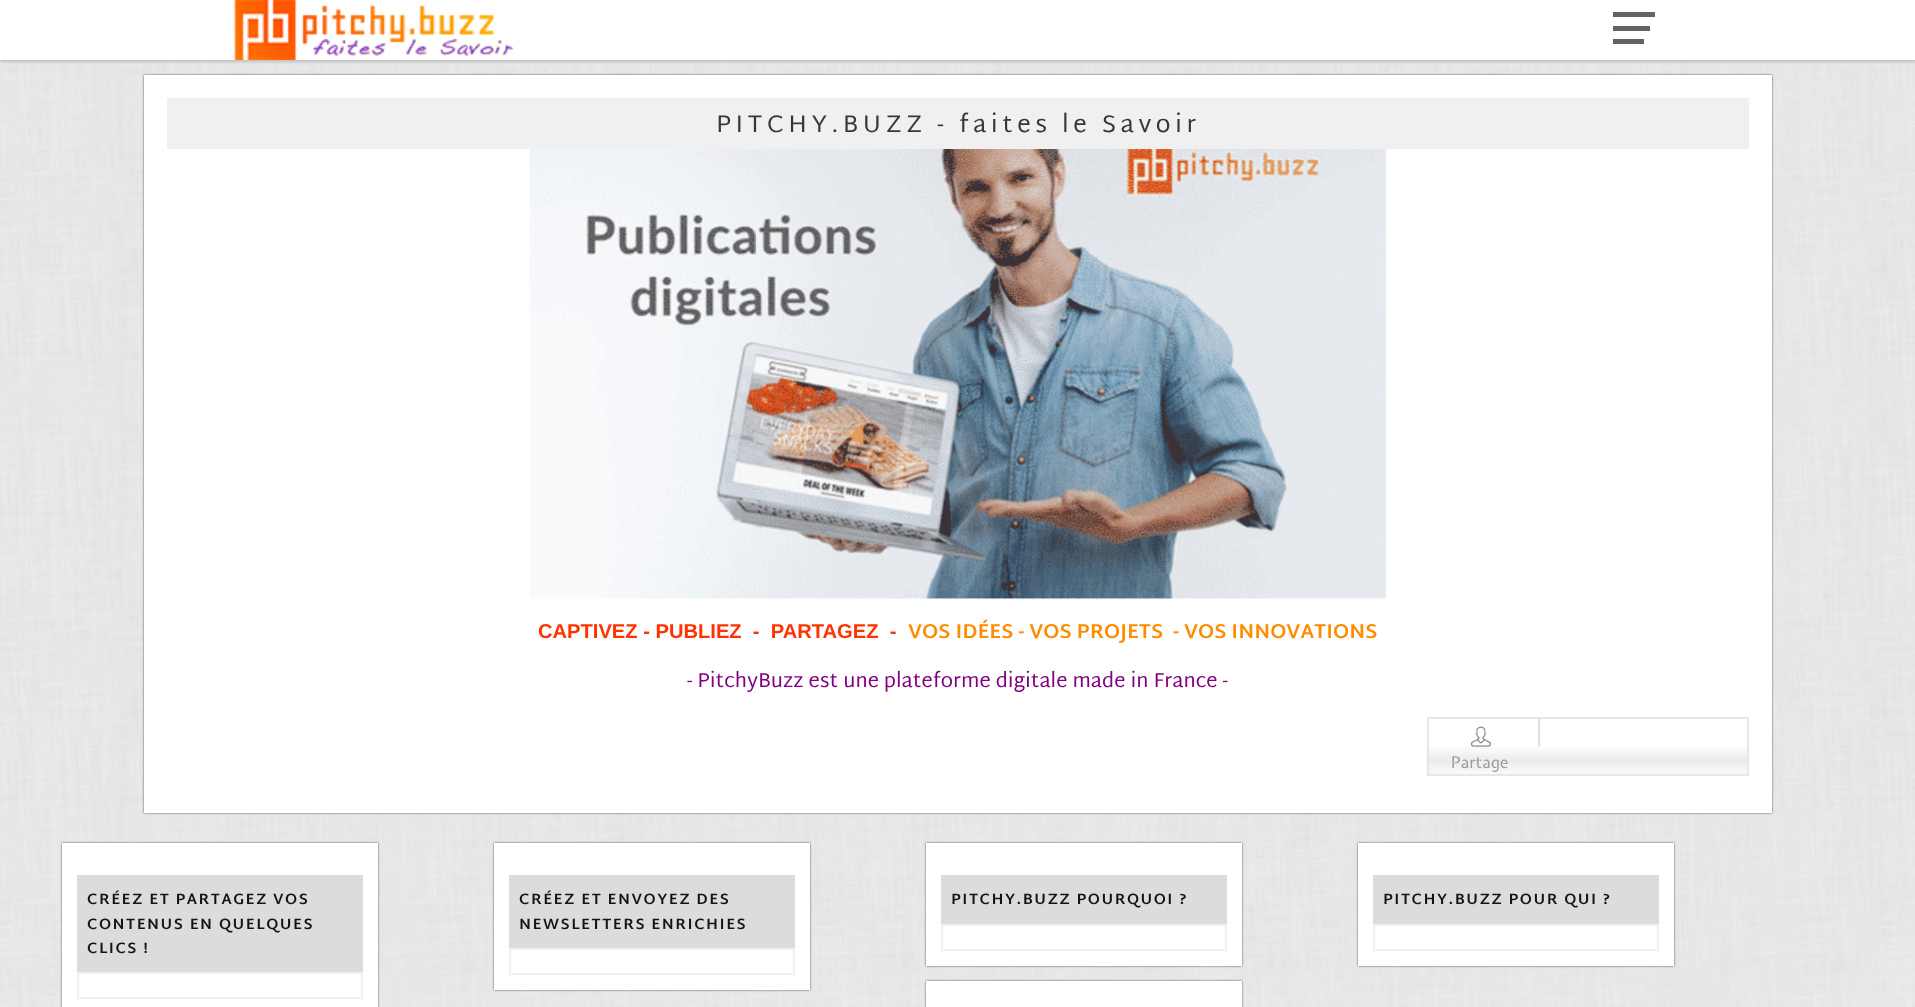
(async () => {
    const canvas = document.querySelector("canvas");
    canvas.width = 1915;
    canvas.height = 1007;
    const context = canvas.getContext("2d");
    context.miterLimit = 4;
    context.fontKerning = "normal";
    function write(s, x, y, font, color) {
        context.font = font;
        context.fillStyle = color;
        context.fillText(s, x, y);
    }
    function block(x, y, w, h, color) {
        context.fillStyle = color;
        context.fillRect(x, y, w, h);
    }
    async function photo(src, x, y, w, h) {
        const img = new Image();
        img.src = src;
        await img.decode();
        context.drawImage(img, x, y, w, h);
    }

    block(0, 0, 1915, 1007, "rgb(255, 255, 255)");
    await photo("media/1.png", 0, 60, 1915, 947);
    context.fillStyle = "rgb(190, 190, 190)";
    context.filter = "blur(1.5px)";
    context.beginPath();
    context.rect(0, 2, 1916, 60);
    context.fill();
    context.filter = "none";
    block(0, 0, 1915, 60, "rgb(255, 255, 255)");
    await photo("media/2.png", 233, 0, 281, 60);
    block(1613, 12, 42, 5, "rgb(100, 100, 100)");
    block(1613, 26, 37, 5, "rgb(100, 100, 100)");
    block(1613, 39, 31, 5, "rgb(100, 100, 100)");
    context.fillStyle = "rgb(80, 80, 80)";
    context.filter = "blur(1px)";
    context.beginPath();
    context.rect(144, 75, 1628, 738);
    context.fill();
    context.filter = "none";
    block(144, 75, 1628, 738, "rgb(255, 255, 255)");
    block(167, 98, 1582, 51, "rgb(240, 240, 240)");
    context.letterSpacing = "4.5px";
    write("PITCHY.BUZZ - faites le Savoir", 716, 132, "24.2px Martel Sans", "rgb(55, 55, 55)");
    await photo("media/3.png", 529, 149, 858, 451);
    context.letterSpacing = "0px";
    write("CAPTIVEZ - PUBLIEZ  -  PARTAGEZ  -", 538, 638, "bold 20.15px Liberation Sans", "rgb(255, 51, 0)");
    write("VOS IDÉES - VOS PROJETS  - VOS INNOVATIONS", 908, 638, "bold 20.15px Martel Sans", "rgb(255, 140, 0)");
    write("- PitchyBuzz est une plateforme digitale made in France -", 687, 687, "20.15px Martel Sans", "rgb(128, 0, 128)");
    await photo("media/4.png", 1426, 747, 321, 27);
    context.strokeStyle = "rgb(231, 231, 231)";
    context.lineWidth = 2;
    context.strokeRect(1428, 718, 320, 57);
    block(1538, 719, 2, 28, "rgb(224, 224, 224)");
    await photo("media/5.png", 1471, 726, 20, 21);
    write("Partage", 1451, 768, "16px Expletus Sans", "rgb(156, 156, 156)");
    context.fillStyle = "rgb(80, 80, 80)";
    context.filter = "blur(1px)";
    context.beginPath();
    context.rect(62, 843, 316, 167);
    context.fill();
    context.filter = "none";
    block(62, 843, 316, 164, "rgb(255, 255, 255)");
    block(77, 875, 286, 97, "rgb(220, 220, 220)");
    context.letterSpacing = "1.5px";
    write("CRÉEZ ET PARTAGEZ VOS", 87, 904, "bold 15.1px Martel Sans", "rgb(20, 20, 20)");
    write("CONTENUS EN QUELQUES", 87, 929, "bold 15.1px Martel Sans", "rgb(20, 20, 20)");
    write("CLICS !", 87, 953, "bold 15.1px Martel Sans", "rgb(20, 20, 20)");
    context.strokeStyle = "rgb(240, 240, 240)";
    context.strokeRect(78, 973, 284, 25);
    context.fillStyle = "rgb(80, 80, 80)";
    context.filter = "blur(1px)";
    context.beginPath();
    context.rect(494, 843, 316, 147);
    context.fill();
    context.filter = "none";
    block(494, 843, 316, 147, "rgb(255, 255, 255)");
    block(509, 875, 286, 73, "rgb(220, 220, 220)");
    write("CRÉEZ ET ENVOYEZ DES", 519, 904, "bold 15.1px Martel Sans", "rgb(20, 20, 20)");
    write("NEWSLETTERS ENRICHIES", 519, 929, "bold 15.1px Martel Sans", "rgb(20, 20, 20)");
    context.strokeRect(510, 949, 284, 25);
    context.fillStyle = "rgb(80, 80, 80)";
    context.filter = "blur(1px)";
    context.beginPath();
    context.rect(926, 843, 316, 123);
    context.fill();
    context.filter = "none";
    block(926, 843, 316, 123, "rgb(255, 255, 255)");
    block(941, 875, 286, 49, "rgb(220, 220, 220)");
    write("PITCHY.BUZZ POURQUOI ?", 951, 904, "bold 15.1px Martel Sans", "rgb(20, 20, 20)");
    context.strokeRect(942, 925, 284, 25);
    context.fillStyle = "rgb(80, 80, 80)";
    context.filter = "blur(1px)";
    context.beginPath();
    context.rect(1358, 843, 316, 123);
    context.fill();
    context.filter = "none";
    block(1358, 843, 316, 123, "rgb(255, 255, 255)");
    block(1373, 875, 286, 49, "rgb(220, 220, 220)");
    write("PITCHY.BUZZ POUR QUI ?", 1383, 904, "bold 15.1px Martel Sans", "rgb(20, 20, 20)");
    context.strokeRect(1374, 925, 284, 25);
    context.fillStyle = "rgb(80, 80, 80)";
    context.filter = "blur(1px)";
    context.beginPath();
    context.rect(926, 981, 316, 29);
    context.fill();
    context.filter = "none";
    block(926, 981, 316, 26, "rgb(255, 255, 255)");
})();
